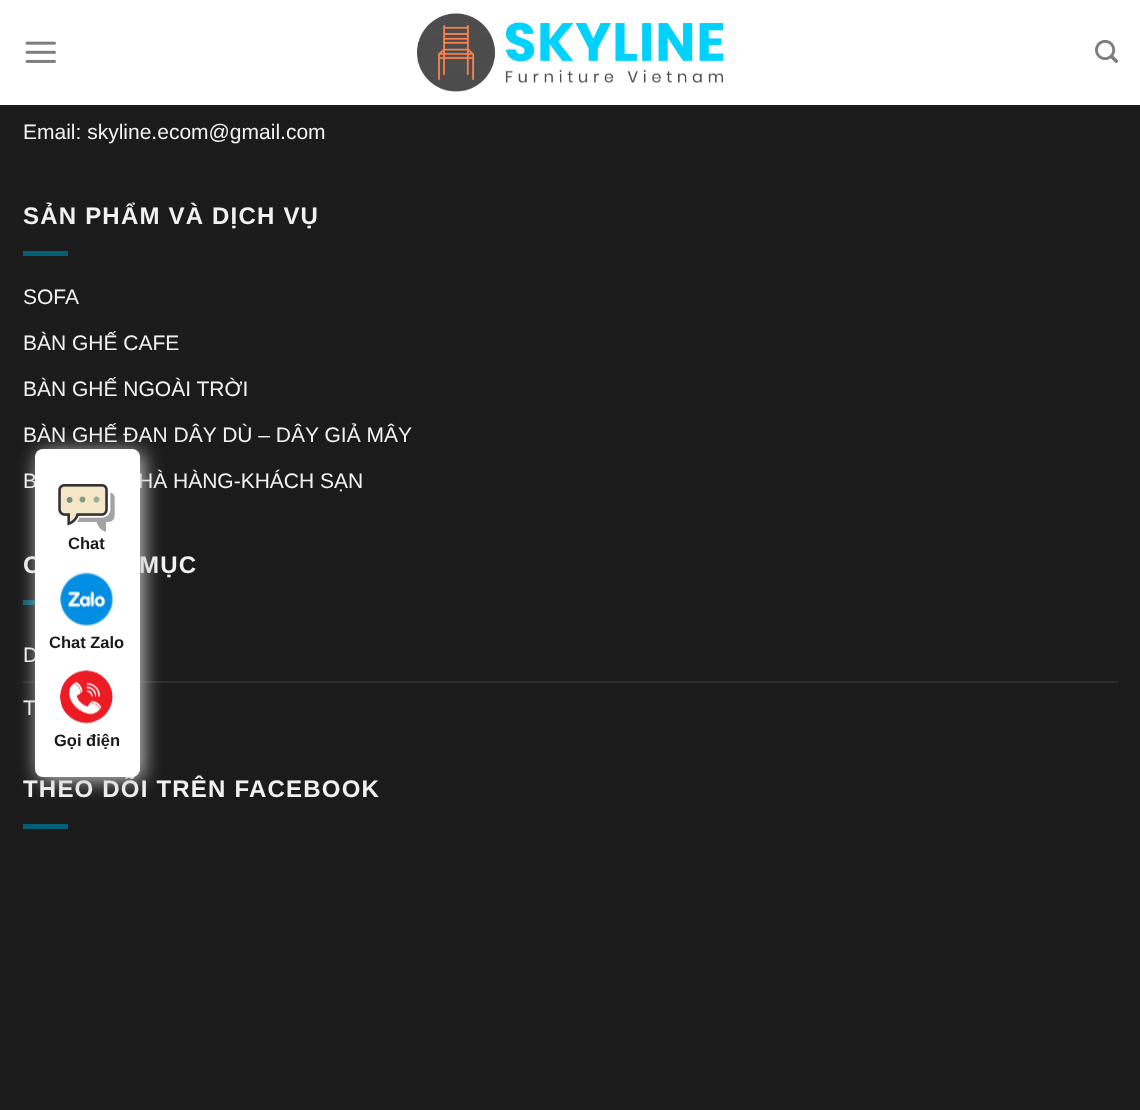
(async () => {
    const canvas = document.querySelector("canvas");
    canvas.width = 1140;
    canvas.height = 1110;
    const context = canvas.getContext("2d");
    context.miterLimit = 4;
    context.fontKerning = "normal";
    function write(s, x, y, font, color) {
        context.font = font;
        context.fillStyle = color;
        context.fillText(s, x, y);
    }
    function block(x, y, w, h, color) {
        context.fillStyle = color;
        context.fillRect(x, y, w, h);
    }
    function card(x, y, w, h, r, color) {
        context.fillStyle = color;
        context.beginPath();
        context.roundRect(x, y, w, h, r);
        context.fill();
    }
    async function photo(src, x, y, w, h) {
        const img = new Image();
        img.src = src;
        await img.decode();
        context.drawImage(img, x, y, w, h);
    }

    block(0, 0, 1140, 1110, "rgb(27, 27, 27)");
    block(0, 0, 1140, 105, "rgb(255, 255, 255)");
    await photo("media/1.png", 25, 41, 31, 22);
    await photo("media/2.png", 417, 13, 306, 79);
    await photo("media/3.png", 1095, 39, 23, 24);
    write("Email: skyline.ecom@gmail.com", 23, 139, "21px Liberation Sans", "rgb(241, 241, 241)");
    context.letterSpacing = "1.2px";
    write("SẢN PHẨM VÀ DỊCH VỤ", 23, 224, "bold 24px Liberation Sans", "rgb(241, 241, 241)");
    block(23, 251, 45, 5, "rgb(3, 94, 119)");
    context.letterSpacing = "0px";
    write("SOFA", 23, 304, "21px Liberation Sans", "rgb(241, 241, 241)");
    write("BÀN GHẾ CAFE", 23, 350, "21px Liberation Sans", "rgb(241, 241, 241)");
    write("BÀN GHẾ NGOÀI TRỜI", 23, 396, "21px Liberation Sans", "rgb(241, 241, 241)");
    write("BÀN GHẾ ĐAN DÂY DÙ – DÂY GIẢ MÂY", 23, 442, "21px Liberation Sans", "rgb(241, 241, 241)");
    write("B", 23, 488, "21px Liberation Sans", "rgb(241, 241, 241)");
    write("HÀ HÀNG-KHÁCH SẠN", 138, 488, "21px Liberation Sans", "rgb(241, 241, 241)");
    context.letterSpacing = "1.2px";
    write("C", 23, 573, "bold 24px Liberation Sans", "rgb(241, 241, 241)");
    write("MỤC", 139, 573, "bold 24px Liberation Sans", "rgb(241, 241, 241)");
    block(23, 600, 12, 5, "rgb(3, 94, 119)");
    context.letterSpacing = "0px";
    write("D", 23, 662, "21px Liberation Sans", "rgb(241, 241, 241)");
    block(23, 681, 1095, 2, "rgb(45, 45, 45)");
    write("T", 23, 715, "21px Liberation Sans", "rgb(241, 241, 241)");
    context.letterSpacing = "1.2px";
    write("THEO DÕI TRÊN FACEBOOK", 23, 797, "bold 24px Liberation Sans", "rgb(241, 241, 241)");
    block(23, 824, 45, 5, "rgb(3, 94, 119)");
    context.fillStyle = "rgb(202, 202, 202)";
    context.filter = "blur(10px)";
    context.beginPath();
    context.roundRect(38, 452, 105, 328, 8);
    context.fill();
    context.filter = "none";
    card(35, 449, 105, 328, 8, "rgb(255, 255, 255)");
    await photo("media/4.png", 58, 484, 57, 48);
    context.letterSpacing = "0px";
    write("Chat", 68, 549, "bold 16.5px Liberation Sans", "rgb(25, 25, 25)");
    await photo("media/5.png", 60, 572, 53, 54);
    write("Chat Zalo", 49, 648, "bold 16.5px Liberation Sans", "rgb(25, 25, 25)");
    await photo("media/6.png", 60, 670, 53, 54);
    write("Gọi điện", 54, 746, "bold 16.5px Liberation Sans", "rgb(25, 25, 25)");
})();
